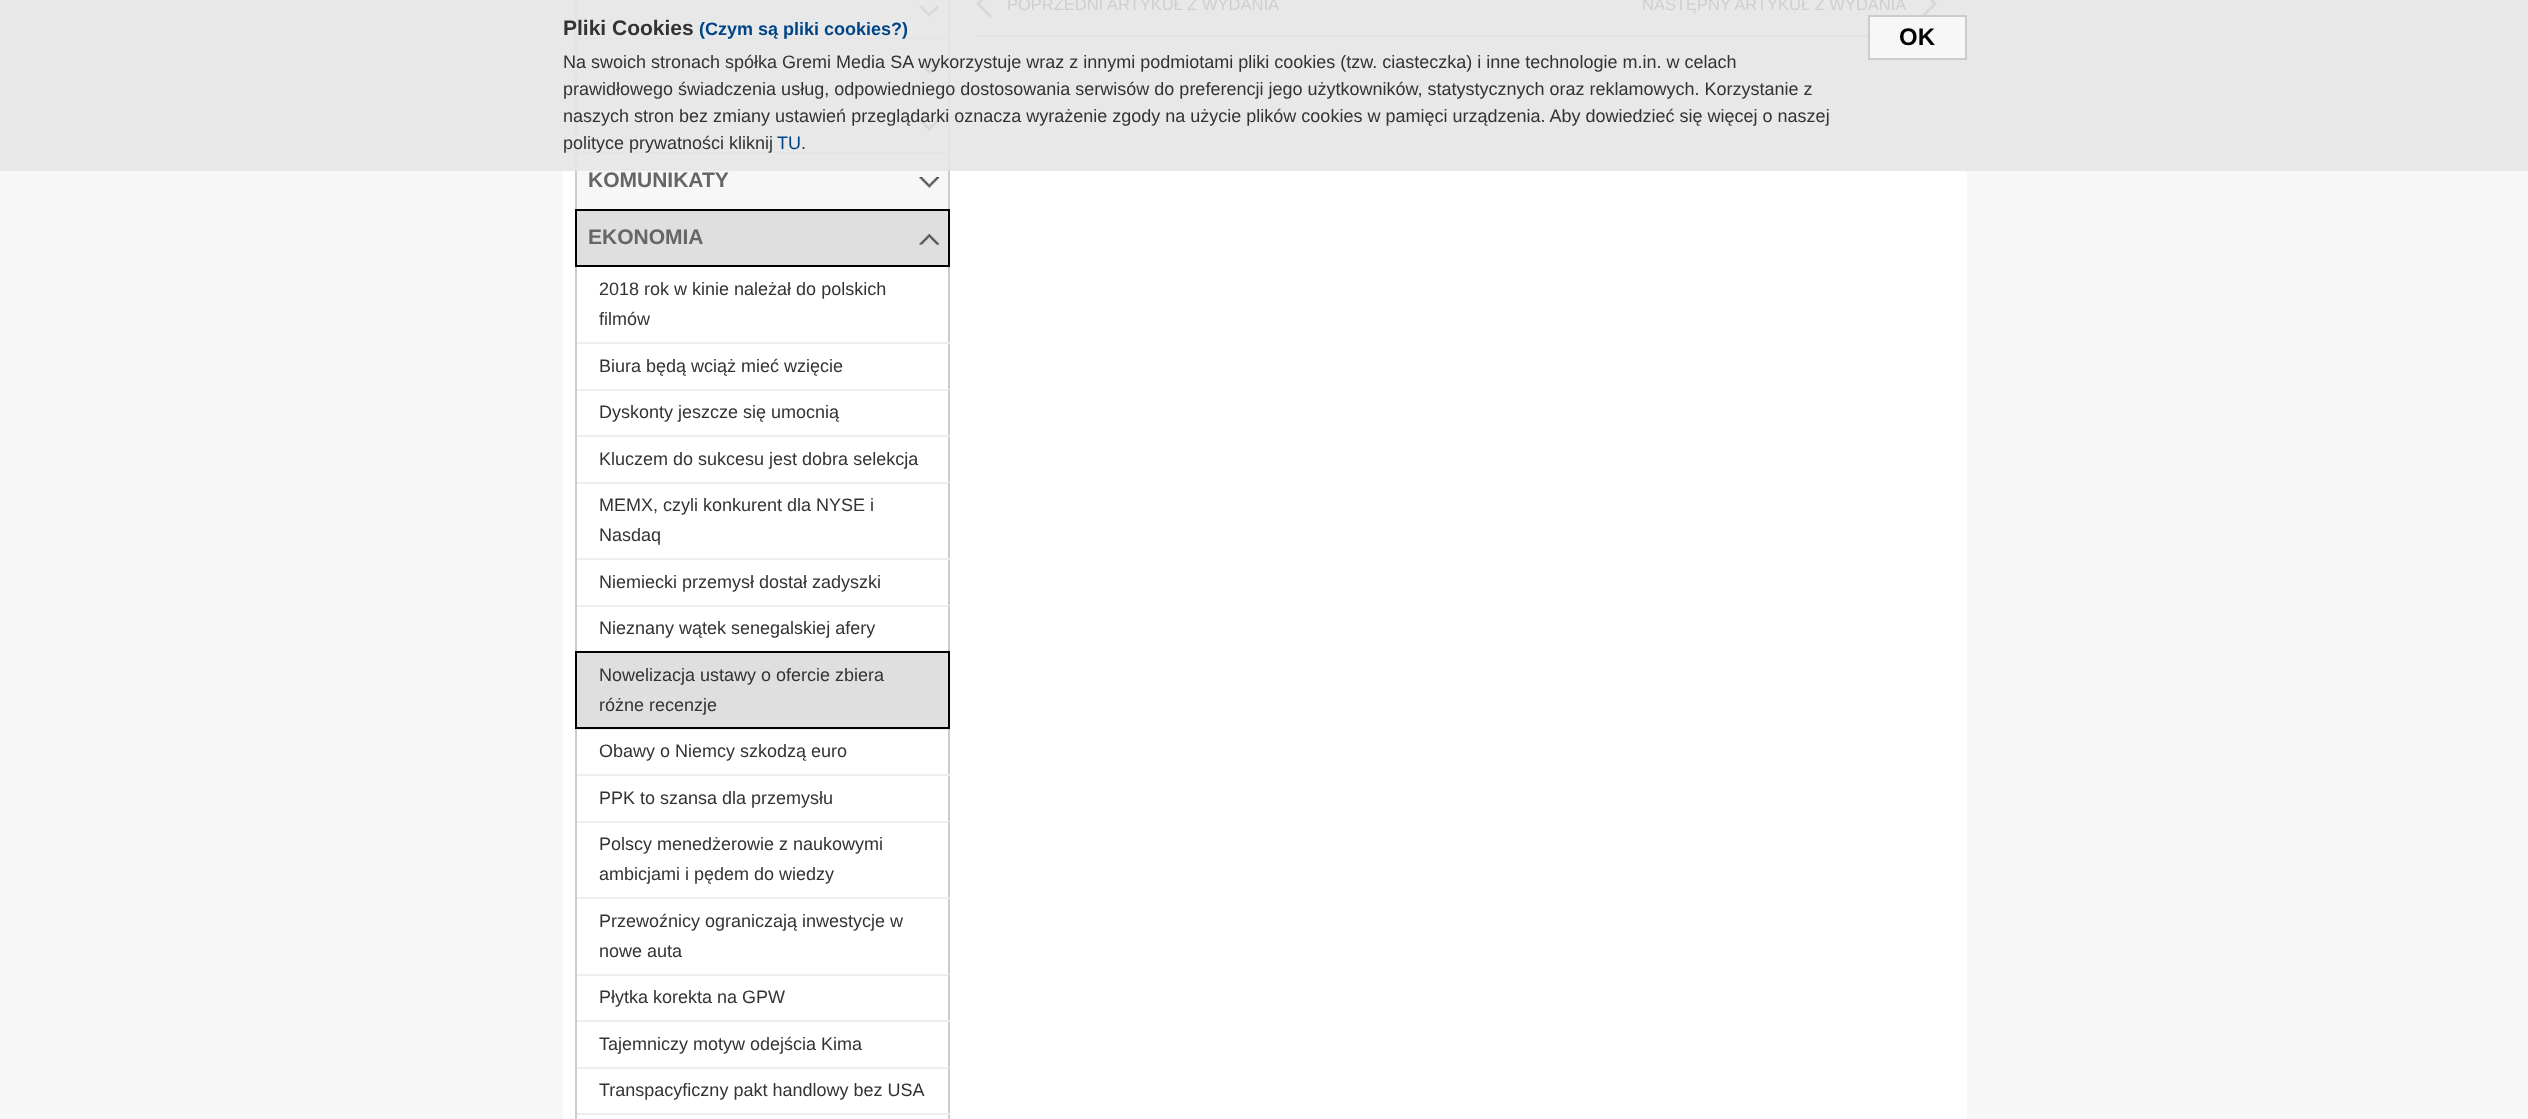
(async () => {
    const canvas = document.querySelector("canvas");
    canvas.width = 2528;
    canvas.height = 1119;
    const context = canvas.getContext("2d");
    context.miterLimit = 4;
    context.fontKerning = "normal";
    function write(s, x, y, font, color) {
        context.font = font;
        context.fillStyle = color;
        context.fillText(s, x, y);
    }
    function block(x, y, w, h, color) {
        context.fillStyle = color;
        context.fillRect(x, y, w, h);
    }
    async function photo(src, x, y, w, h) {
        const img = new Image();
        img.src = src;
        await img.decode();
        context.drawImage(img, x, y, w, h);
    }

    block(0, 0, 2528, 1119, "rgb(247, 247, 247)");
    block(0, 0, 2528, 171, "rgb(232, 232, 232)");
    block(563, 171, 1404, 948, "rgb(255, 255, 255)");
    block(977, 35, 891, 2, "rgb(227, 227, 227)");
    await photo("media/1.png", 976, 0, 16, 18);
    write("POPRZEDNI ARTYKUŁ Z WYDANIA", 1007, 10, "16.5px Liberation Sans", "rgb(207, 207, 207)");
    write("NASTĘPNY ARTYKUŁ Z WYDANIA", 1642, 10, "16.5px Liberation Sans", "rgb(207, 207, 207)");
    await photo("media/2.png", 1921, 0, 16, 15);
    block(948, 0, 2, 171, "rgb(227, 227, 227)");
    block(575, 38, 375, 1, "rgb(227, 227, 227)");
    block(575, 0, 2, 39, "rgb(227, 227, 227)");
    await photo("media/3.png", 919, 6, 20, 11);
    block(575, 95, 375, 1, "rgb(227, 227, 227)");
    block(575, 39, 2, 57, "rgb(227, 227, 227)");
    await photo("media/3.png", 919, 63, 20, 11);
    block(575, 152, 375, 1, "rgb(227, 227, 227)");
    block(575, 96, 2, 75, "rgb(227, 227, 227)");
    await photo("media/3.png", 919, 120, 20, 11);
    block(577, 171, 371, 38, "rgb(247, 247, 247)");
    block(948, 171, 2, 39, "rgb(204, 204, 204)");
    block(575, 171, 2, 39, "rgb(204, 204, 204)");
    write("KOMUNIKATY", 588, 187, "bold 21px Liberation Sans", "rgb(102, 102, 102)");
    await photo("media/4.png", 919, 177, 20, 11);
    context.fillStyle = "rgb(223, 223, 223)";
    context.beginPath();
    context.rect(576, 210, 373, 56);
    context.fill();
    context.strokeStyle = "rgb(0, 0, 0)";
    context.lineWidth = 2;
    context.stroke();
    write("EKONOMIA", 588, 244, "bold 21px Liberation Sans", "rgb(102, 102, 102)");
    await photo("media/5.png", 919, 234, 20, 11);
    block(948, 267, 2, 123, "rgb(204, 204, 204)");
    block(575, 342, 375, 2, "rgb(238, 238, 238)");
    block(575, 267, 2, 77, "rgb(204, 204, 204)");
    write("2018 rok w kinie należał do polskich", 599, 295, "18px Liberation Sans", "rgb(51, 51, 51)");
    write("filmów", 599, 325, "18px Liberation Sans", "rgb(51, 51, 51)");
    block(575, 389, 375, 2, "rgb(238, 238, 238)");
    block(575, 344, 2, 46, "rgb(204, 204, 204)");
    write("Biura będą wciąż mieć wzięcie", 599, 372, "18px Liberation Sans", "rgb(51, 51, 51)");
    block(948, 390, 2, 93, "rgb(204, 204, 204)");
    block(575, 435, 375, 2, "rgb(238, 238, 238)");
    block(575, 390, 2, 47, "rgb(204, 204, 204)");
    write("Dyskonty jeszcze się umocnią", 599, 418, "18px Liberation Sans", "rgb(51, 51, 51)");
    block(575, 482, 375, 2, "rgb(238, 238, 238)");
    block(575, 437, 2, 46, "rgb(204, 204, 204)");
    write("Kluczem do sukcesu jest dobra selekcja", 599, 465, "18px Liberation Sans", "rgb(51, 51, 51)");
    block(948, 483, 2, 123, "rgb(204, 204, 204)");
    block(575, 558, 375, 2, "rgb(238, 238, 238)");
    block(575, 483, 2, 77, "rgb(204, 204, 204)");
    write("MEMX, czyli konkurent dla NYSE i", 599, 511, "18px Liberation Sans", "rgb(51, 51, 51)");
    write("Nasdaq", 599, 541, "18px Liberation Sans", "rgb(51, 51, 51)");
    block(575, 605, 375, 2, "rgb(238, 238, 238)");
    block(575, 560, 2, 93, "rgb(204, 204, 204)");
    write("Niemiecki przemysł dostał zadyszki", 599, 588, "18px Liberation Sans", "rgb(51, 51, 51)");
    block(948, 606, 2, 47, "rgb(204, 204, 204)");
    write("Nieznany wątek senegalskiej afery", 599, 634, "18px Liberation Sans", "rgb(51, 51, 51)");
    block(575, 729, 375, 1, "rgb(238, 238, 238)");
    context.fillStyle = "rgb(223, 223, 223)";
    context.beginPath();
    context.rect(576, 652, 373, 76);
    context.fill();
    context.stroke();
    write("Nowelizacja ustawy o ofercie zbiera", 599, 681, "18px Liberation Sans", "rgb(51, 51, 51)");
    write("różne recenzje", 599, 711, "18px Liberation Sans", "rgb(51, 51, 51)");
    block(948, 729, 2, 93, "rgb(204, 204, 204)");
    block(575, 774, 375, 2, "rgb(238, 238, 238)");
    block(575, 729, 2, 47, "rgb(204, 204, 204)");
    write("Obawy o Niemcy szkodzą euro", 599, 757, "18px Liberation Sans", "rgb(51, 51, 51)");
    block(575, 821, 375, 2, "rgb(238, 238, 238)");
    block(575, 776, 2, 46, "rgb(204, 204, 204)");
    write("PPK to szansa dla przemysłu", 599, 804, "18px Liberation Sans", "rgb(51, 51, 51)");
    block(948, 822, 2, 153, "rgb(204, 204, 204)");
    block(575, 897, 375, 2, "rgb(238, 238, 238)");
    block(575, 822, 2, 77, "rgb(204, 204, 204)");
    write("Polscy menedżerowie z naukowymi", 599, 850, "18px Liberation Sans", "rgb(51, 51, 51)");
    write("ambicjami i pędem do wiedzy", 599, 880, "18px Liberation Sans", "rgb(51, 51, 51)");
    block(575, 974, 375, 2, "rgb(238, 238, 238)");
    block(575, 899, 2, 76, "rgb(204, 204, 204)");
    write("Przewoźnicy ograniczają inwestycje w", 599, 927, "18px Liberation Sans", "rgb(51, 51, 51)");
    write("nowe auta", 599, 957, "18px Liberation Sans", "rgb(51, 51, 51)");
    block(948, 975, 2, 93, "rgb(204, 204, 204)");
    block(575, 1020, 375, 2, "rgb(238, 238, 238)");
    block(575, 975, 2, 47, "rgb(204, 204, 204)");
    write("Płytka korekta na GPW", 599, 1003, "18px Liberation Sans", "rgb(51, 51, 51)");
    block(575, 1067, 375, 2, "rgb(238, 238, 238)");
    block(575, 1022, 2, 46, "rgb(204, 204, 204)");
    write("Tajemniczy motyw odejścia Kima", 599, 1050, "18px Liberation Sans", "rgb(51, 51, 51)");
    block(948, 1068, 2, 51, "rgb(204, 204, 204)");
    block(575, 1113, 375, 2, "rgb(238, 238, 238)");
    block(575, 1068, 2, 51, "rgb(204, 204, 204)");
    write("Transpacyficzny pakt handlowy bez USA", 599, 1096, "18px Liberation Sans", "rgb(51, 51, 51)");
    write("Pliki Cookies", 563, 35, "bold 21px Liberation Sans", "rgb(51, 51, 51)");
    write("(Czym są pliki cookies?)", 699, 35, "bold 18px Liberation Sans", "rgb(0, 68, 136)");
    write("Na swoich stronach spółka Gremi Media SA wykorzystuje wraz z innymi podmiotami pliki cookies (tzw. ciasteczka) i inne technologie m.in. w celach", 563, 68, "18px Liberation Sans", "rgb(51, 51, 51)");
    write("prawidłowego świadczenia usług, odpowiedniego dostosowania serwisów do preferencji jego użytkowników, statystycznych oraz reklamowych. Korzystanie z", 563, 95, "18px Liberation Sans", "rgb(51, 51, 51)");
    write("naszych stron bez zmiany ustawień przeglądarki oznacza wyrażenie zgody na użycie plików cookies w pamięci urządzenia. Aby dowiedzieć się więcej o naszej", 563, 122, "18px Liberation Sans", "rgb(51, 51, 51)");
    write("polityce prywatności kliknij", 563, 149, "18px Liberation Sans", "rgb(51, 51, 51)");
    write("TU", 777, 149, "18px Liberation Sans", "rgb(0, 68, 136)");
    write(".", 801, 149, "18px Liberation Sans", "rgb(51, 51, 51)");
    context.fillStyle = "rgb(247, 247, 247)";
    context.beginPath();
    context.rect(1869, 16, 97, 43);
    context.fill();
    context.strokeStyle = "rgb(204, 204, 204)";
    context.stroke();
    write("OK", 1899, 45, "bold 24px Liberation Sans", "rgb(0, 0, 0)");
})();
